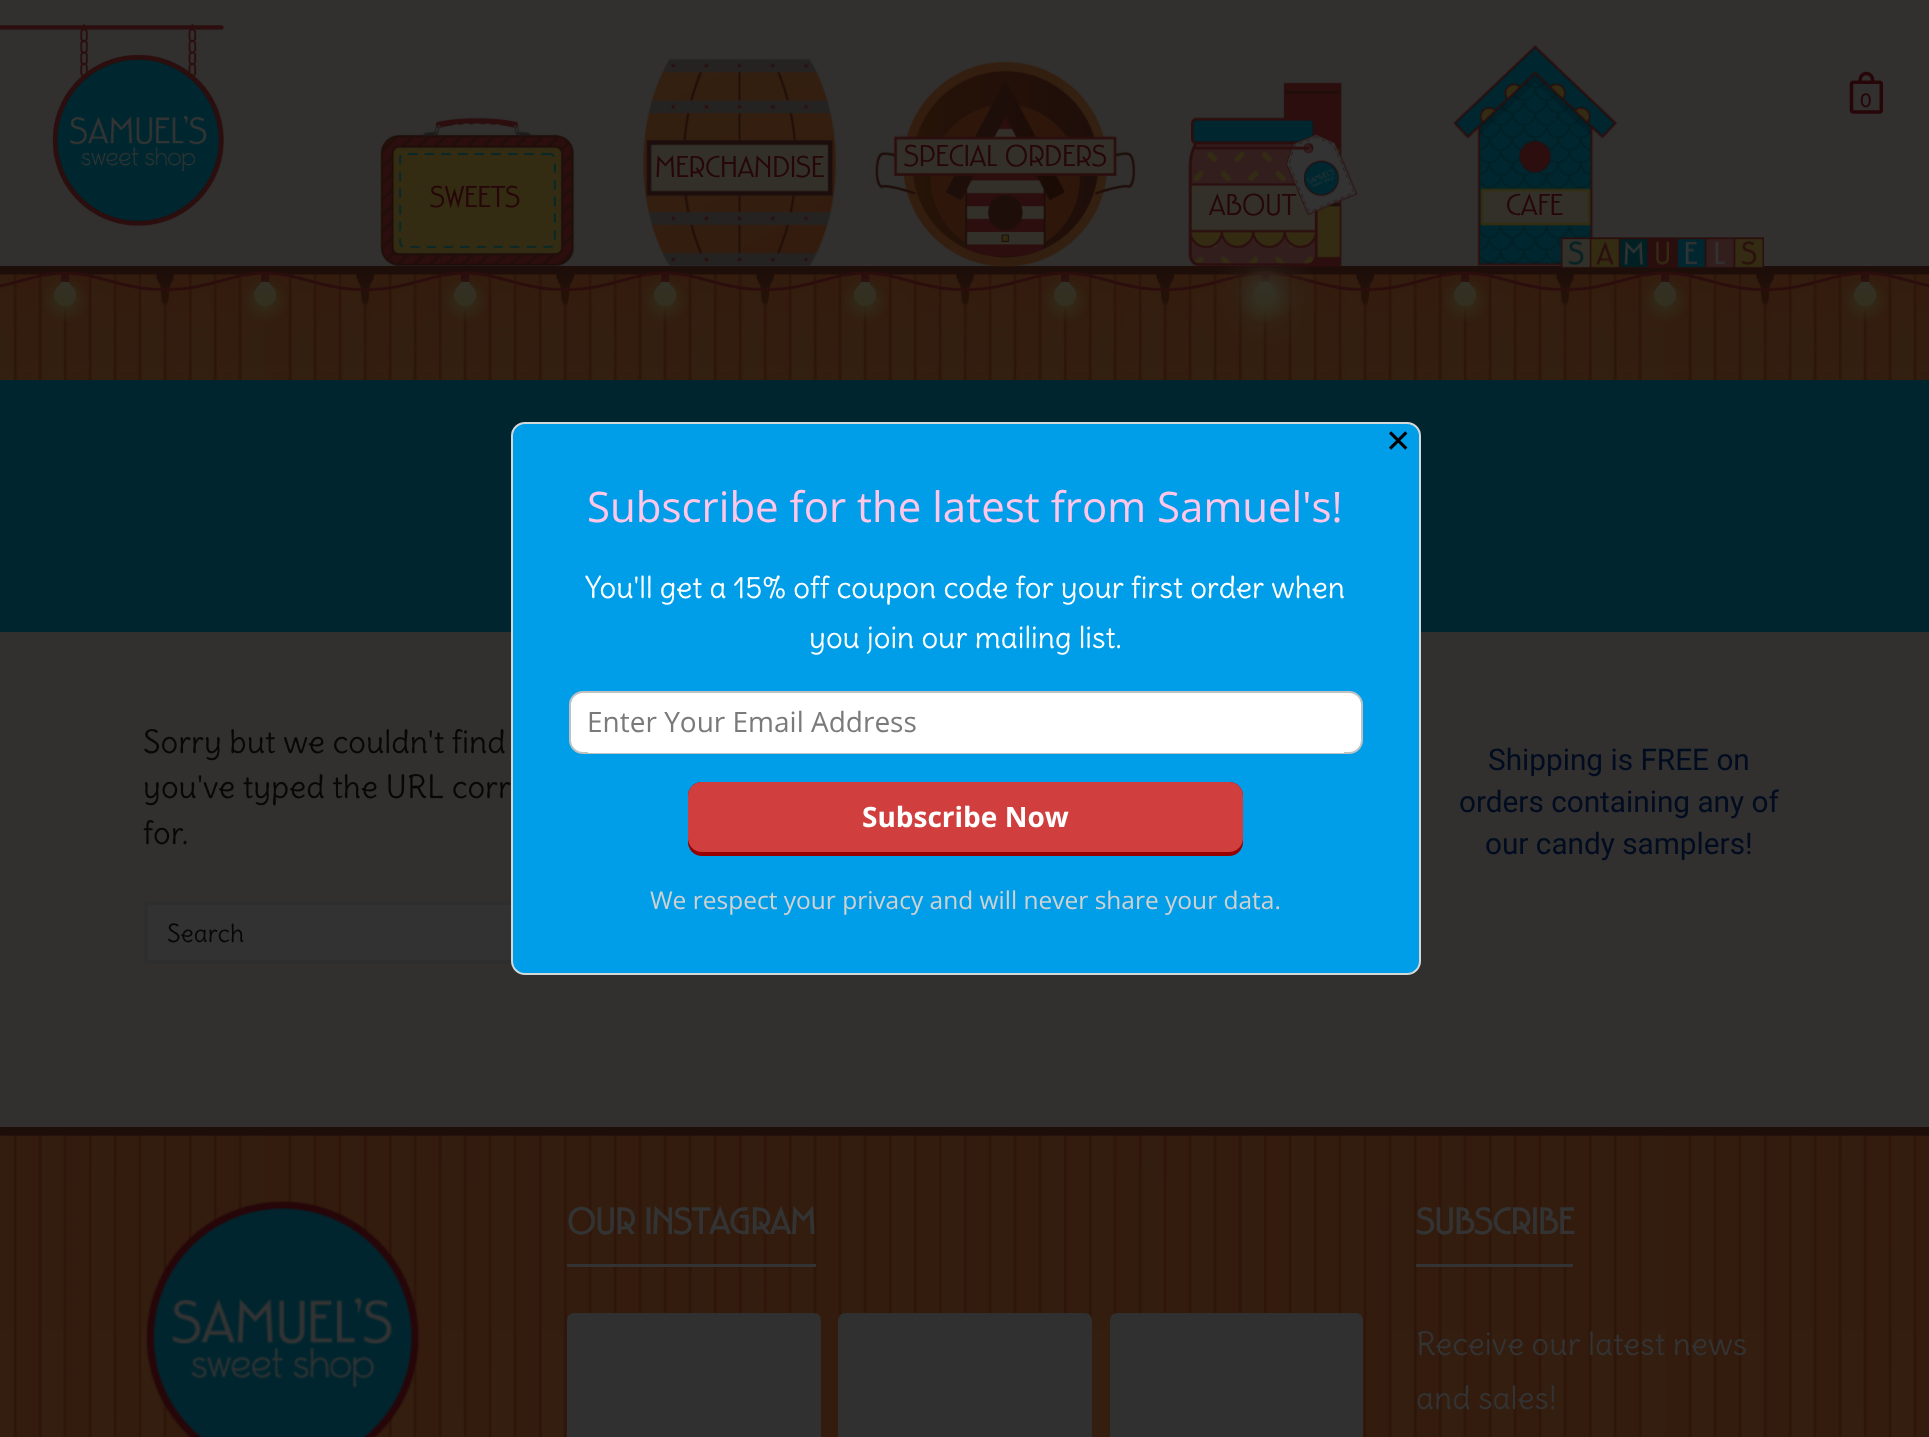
(async () => {
    const canvas = document.querySelector("canvas");
    canvas.width = 1929;
    canvas.height = 1437;
    const context = canvas.getContext("2d");
    context.miterLimit = 4;
    context.fontKerning = "normal";
    function write(s, x, y, font, color) {
        context.font = font;
        context.fillStyle = color;
        context.fillText(s, x, y);
    }
    function block(x, y, w, h, color) {
        context.fillStyle = color;
        context.fillRect(x, y, w, h);
    }
    function card(x, y, w, h, r, color) {
        context.fillStyle = color;
        context.beginPath();
        context.roundRect(x, y, w, h, r);
        context.fill();
    }
    async function photo(src, x, y, w, h) {
        const img = new Image();
        img.src = src;
        await img.decode();
        context.drawImage(img, x, y, w, h);
    }

    block(0, 0, 1929, 1437, "rgb(49, 48, 46)");
    await photo("media/1.png", 0, 24, 224, 202);
    block(0, 379, 1929, 253, "rgb(0, 37, 46)");
    await photo("media/2.png", 0, 379, 1929, 1);
    await photo("media/3.png", 0, 266, 1929, 114);
    await photo("media/4.png", 1849, 71, 34, 43);
    write("0", 1860, 107, "bold 21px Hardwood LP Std", "rgb(38, 6, 9)");
    await photo("media/5.png", 643, 58, 194, 209);
    write("MERCHANDISE", 655, 177, "33.25px Hardwood LP Std", "rgb(38, 6, 9)");
    await photo("media/6.png", 875, 61, 261, 206);
    write("SPECIAL ORDERS", 904, 166, "33.25px Hardwood LP Std", "rgb(38, 6, 9)");
    await photo("media/7.png", 380, 117, 195, 149);
    write("SWEETS", 430, 207, "33.25px Hardwood LP Std", "rgb(38, 6, 9)");
    await photo("media/8.png", 1188, 82, 170, 185);
    write("ABOUT", 1209, 215, "33.25px Hardwood LP Std", "rgb(38, 6, 9)");
    await photo("media/9.png", 1453, 45, 165, 221);
    write("CAFE", 1506, 215, "33.25px Hardwood LP Std", "rgb(38, 6, 9)");
    await photo("media/10.png", 1561, 237, 203, 31);
    write("Sorry but we couldn't find", 143, 753, "31.5px Delius", "rgb(7, 7, 7)");
    write("you've typed the URL corr", 143, 798, "31.5px Delius", "rgb(7, 7, 7)");
    write("for.", 143, 844, "31.5px Delius", "rgb(7, 7, 7)");
    context.fillStyle = "rgb(50, 50, 50)";
    context.beginPath();
    context.roundRect(146, 903, 1215, 59, 3);
    context.fill();
    context.strokeStyle = "rgb(46, 46, 46)";
    context.lineWidth = 4;
    context.stroke();
    write("Search", 167, 942, "24.5px Delius", "rgb(7, 7, 7)");
    write("Shipping is FREE on", 1488, 770, "29.75px Roboto", "rgb(1, 12, 32)");
    write("orders containing any of", 1459, 812, "29.75px Roboto", "rgb(1, 12, 32)");
    write("our candy samplers!", 1485, 854, "29.75px Roboto", "rgb(1, 12, 32)");
    await photo("media/11.png", 0, 1127, 1929, 310);
    await photo("media/12.png", 146, 1201, 274, 236);
    block(567, 1264, 249, 3, "rgb(51, 51, 51)");
    write("OUR INSTAGRAM", 567, 1234, "bold 40.25px Hardwood LP Std", "rgb(51, 51, 51)");
    card(567, 1313, 254, 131, 7, "rgb(48, 48, 48)");
    card(838, 1313, 254, 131, 7, "rgb(48, 48, 48)");
    card(1110, 1313, 253, 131, 7, "rgb(48, 48, 48)");
    block(1416, 1264, 157, 3, "rgb(51, 51, 51)");
    write("SUBSCRIBE", 1416, 1234, "bold 40.25px Hardwood LP Std", "rgb(51, 51, 51)");
    write("Receive our latest news", 1416, 1355, "31.5px Delius", "rgb(51, 51, 51)");
    write("and sales!", 1416, 1409, "31.5px Delius", "rgb(51, 51, 51)");
    context.fillStyle = "rgb(0, 158, 232)";
    context.beginPath();
    context.roundRect(512, 423, 908, 551, 13);
    context.fill();
    context.strokeStyle = "rgb(212, 216, 216)";
    context.lineWidth = 2;
    context.stroke();
    write("✕", 1385, 452, "31.5px DejaVu Sans", "rgb(0, 0, 0)");
    write("Subscribe for the latest from Samuel's!", 587, 522, "42px Open Sans", "rgb(255, 198, 232)");
    write("You'll get a 15% off coupon code for your first order when", 585, 598, "29.75px Delius", "rgb(255, 255, 255)");
    write("you join our mailing list.", 809, 648, "29.75px Delius", "rgb(255, 255, 255)");
    context.beginPath();
    context.roundRect(570, 692, 792, 61, 13);
    context.fill();
    context.strokeStyle = "rgb(190, 194, 194)";
    context.stroke();
    block(588, 752, 756, 1, "rgb(255, 255, 255)");
    write("Enter Your Email Address", 587, 732, "28px Open Sans", "rgb(122, 122, 122)");
    card(688, 782, 555, 74, 14, "rgb(150, 1, 1)");
    card(688, 782, 555, 70, 14, "rgb(209, 62, 62)");
    write("Subscribe Now", 862, 827, "bold 28px Open Sans", "rgb(255, 255, 255)");
    write("We respect your privacy and will never share your data.", 650, 909, "24.5px Open Sans", "rgb(209, 209, 209)");
})();
